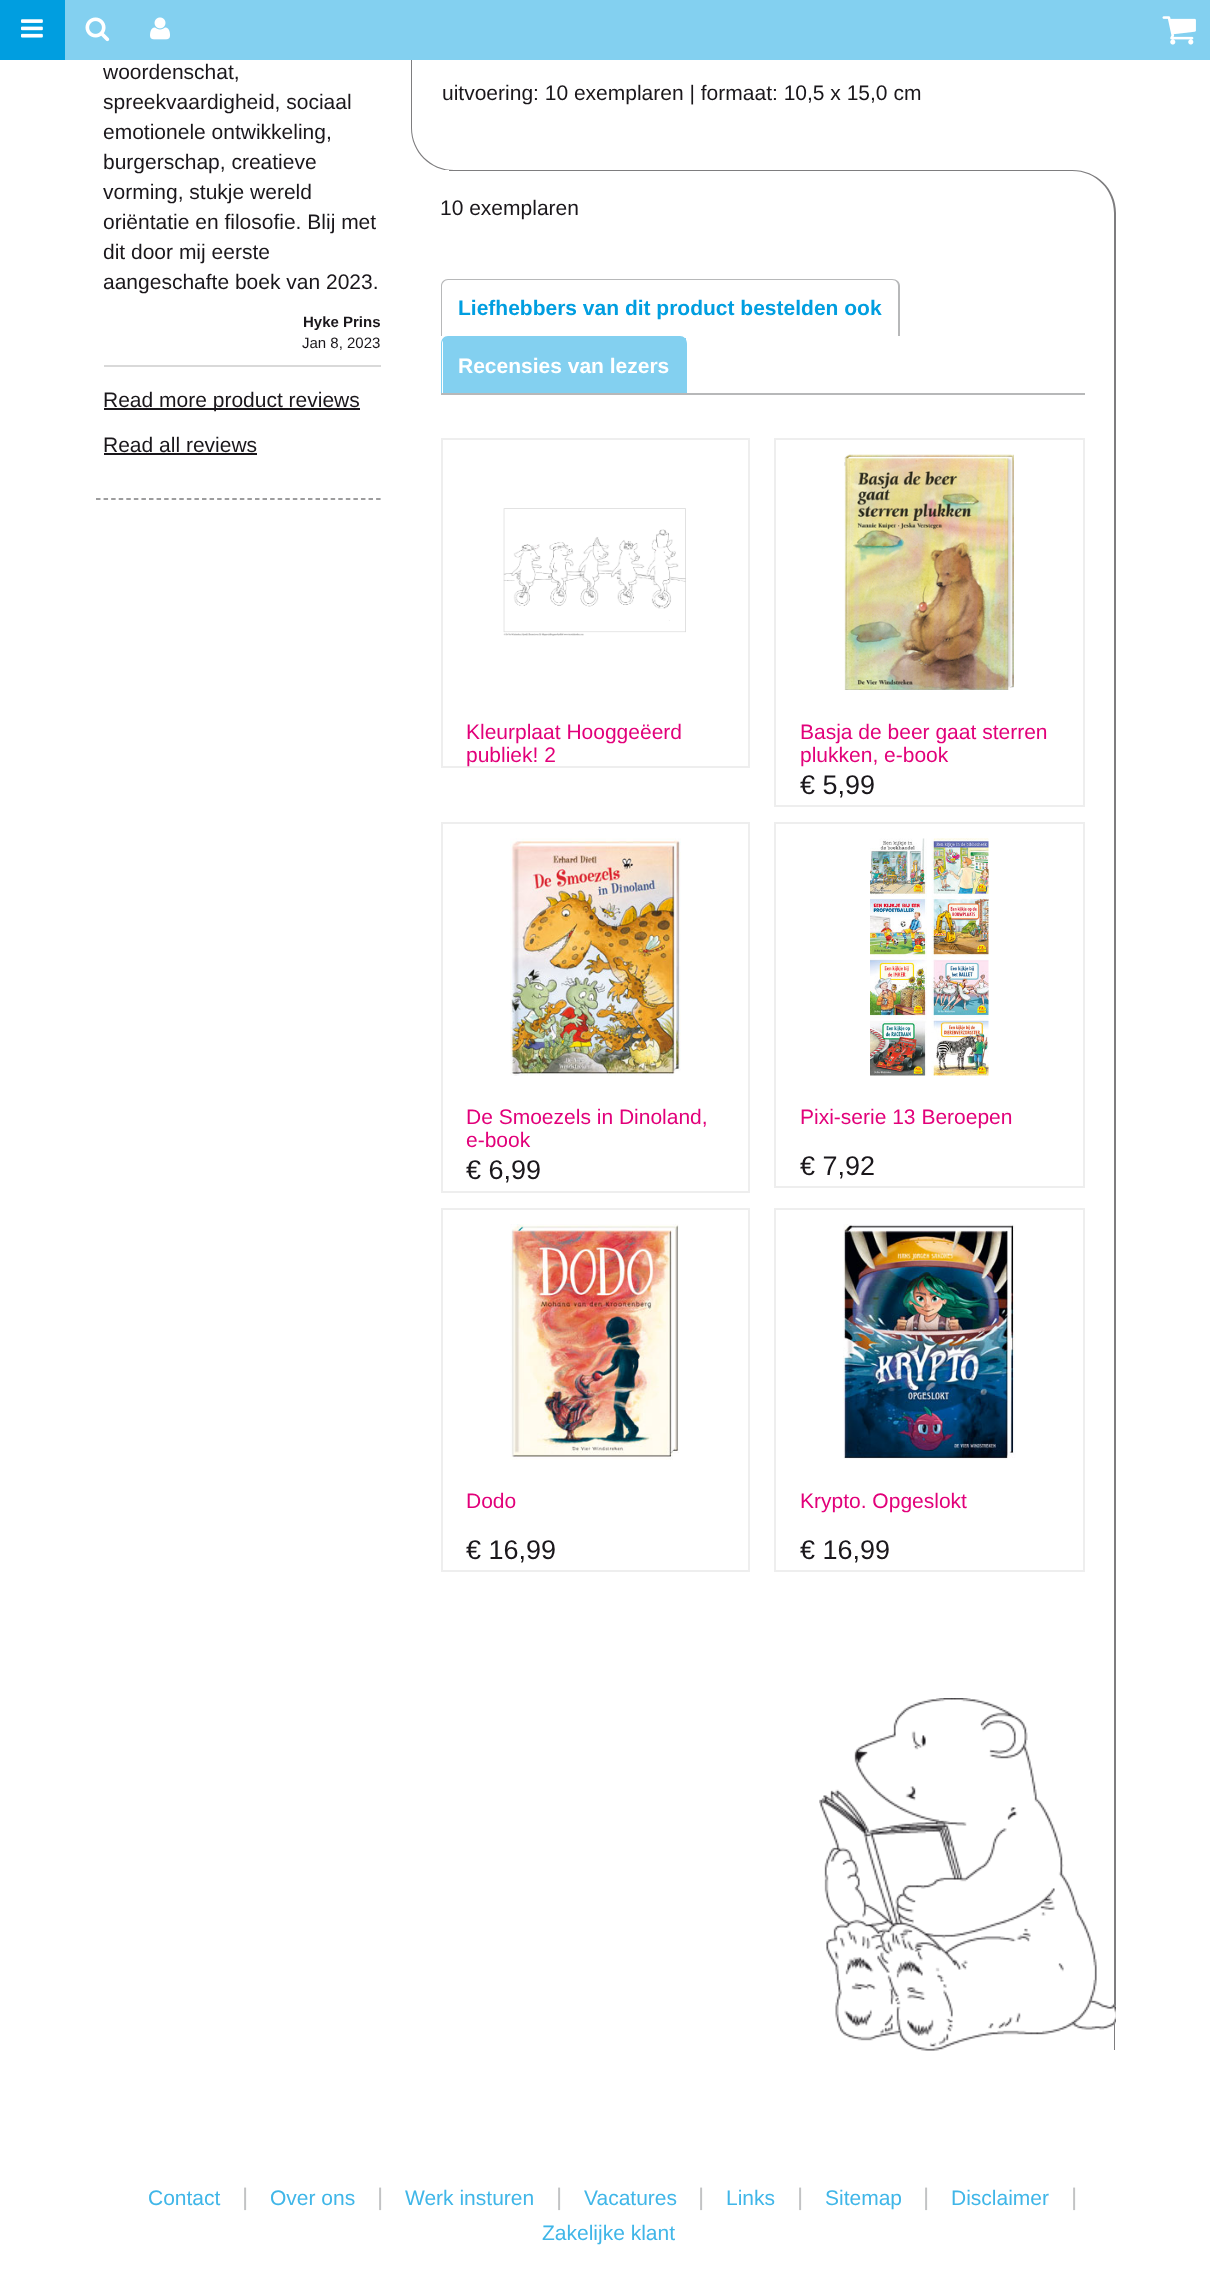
(async () => {
    const canvas = document.querySelector("canvas");
    canvas.width = 1210;
    canvas.height = 2275;
    const context = canvas.getContext("2d");
    context.miterLimit = 4;
    context.fontKerning = "normal";
    function write(s, x, y, font, color) {
        context.font = font;
        context.fillStyle = color;
        context.fillText(s, x, y);
    }
    function block(x, y, w, h, color) {
        context.fillStyle = color;
        context.fillRect(x, y, w, h);
    }
    async function photo(src, x, y, w, h) {
        const img = new Image();
        img.src = src;
        await img.decode();
        context.drawImage(img, x, y, w, h);
    }

    block(0, 0, 1210, 2275, "rgb(255, 255, 255)");
    context.fillStyle = "rgb(126, 125, 127)";
    context.beginPath();
    context.moveTo(411, -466);
    context.lineTo(1116, -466);
    context.lineTo(1116, 171);
    context.lineTo(454, 171);
    context.bezierCurveTo(430, 171, 411, 152, 411, 128);
    context.closePath();
    context.moveTo(412, -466);
    context.lineTo(1116, -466);
    context.lineTo(1116, 170);
    context.lineTo(454, 170);
    context.bezierCurveTo(431, 170, 412, 151, 412, 128);
    context.closePath();
    context.fill("evenodd");
    block(65, 0, 1145, 60, "rgb(131, 208, 240)");
    block(0, 0, 65, 60, "rgb(0, 158, 224)");
    await photo("media/1.png", 21, 19, 22, 19);
    await photo("media/2.png", 85, 17, 25, 25);
    await photo("media/3.png", 150, 17, 20, 23);
    await photo("media/4.png", 1162, 16, 34, 29);
    context.beginPath();
    context.moveTo(96, 499);
    context.lineTo(381, 499);
    context.strokeStyle = "rgb(126, 125, 127)";
    context.lineWidth = 1.5;
    context.setLineDash([4.5, 3.07]);
    context.stroke();
    write("woordenschat,", 103, 79, "21px Liberation Sans", "rgb(26, 23, 27)");
    write("spreekvaardigheid, sociaal", 103, 109, "21px Liberation Sans", "rgb(26, 23, 27)");
    write("emotionele ontwikkeling,", 103, 139, "21px Liberation Sans", "rgb(26, 23, 27)");
    write("burgerschap, creatieve", 103, 169, "21px Liberation Sans", "rgb(26, 23, 27)");
    write("vorming, stukje wereld", 103, 199, "21px Liberation Sans", "rgb(26, 23, 27)");
    write("oriëntatie en filosofie. Blij met", 103, 229, "21px Liberation Sans", "rgb(26, 23, 27)");
    write("dit door mij eerste", 103, 259, "21px Liberation Sans", "rgb(26, 23, 27)");
    write("aangeschafte boek van 2023.", 103, 289, "21px Liberation Sans", "rgb(26, 23, 27)");
    write("Hyke Prins", 303, 327, "bold 15px Liberation Sans", "rgb(26, 23, 27)");
    write("Jan 8, 2023", 302, 348, "15px Liberation Sans", "rgb(26, 23, 27)");
    block(104, 365, 277, 2, "rgb(217, 217, 217)");
    block(104, 408, 256, 2, "rgb(26, 23, 27)");
    write("Read more product reviews", 103, 407, "21px Liberation Sans", "rgb(26, 23, 27)");
    write("Read all reviews", 103, 452, "21px Liberation Sans", "rgb(26, 23, 27)");
    block(104, 453, 153, 2, "rgb(26, 23, 27)");
    write("uitvoering: 10 exemplaren | formaat: 10,5 x 15,0 cm", 442, 100, "21px Liberation Sans", "rgb(26, 23, 27)");
    block(449, 170, 667, 1, "rgb(255, 255, 255)");
    context.fillStyle = "rgb(126, 125, 127)";
    context.beginPath();
    context.moveTo(411, 170);
    context.lineTo(1072, 170);
    context.bezierCurveTo(1097, 170, 1116, 189, 1116, 213);
    context.lineTo(1116, 2050);
    context.lineTo(411, 2050);
    context.closePath();
    context.moveTo(411, 171);
    context.lineTo(1072, 171);
    context.bezierCurveTo(1096, 171, 1114, 190, 1114, 213);
    context.lineTo(1114, 2050);
    context.lineTo(411, 2050);
    context.closePath();
    context.fill("evenodd");
    block(411, 170, 38, 1, "rgb(255, 255, 255)");
    write("10 exemplaren", 440, 215, "21px Liberation Sans", "rgb(26, 23, 27)");
    context.fillStyle = "rgb(183, 184, 185)";
    context.beginPath();
    context.moveTo(448, 279);
    context.lineTo(892, 279);
    context.bezierCurveTo(897, 279, 900, 282, 900, 286);
    context.lineTo(900, 336);
    context.lineTo(441, 336);
    context.lineTo(441, 286);
    context.bezierCurveTo(441, 282, 444, 279, 448, 279);
    context.closePath();
    context.moveTo(448, 280);
    context.lineTo(892, 280);
    context.bezierCurveTo(896, 280, 898, 283, 898, 286);
    context.lineTo(898, 336);
    context.lineTo(442, 336);
    context.lineTo(442, 286);
    context.bezierCurveTo(442, 283, 445, 280, 448, 280);
    context.closePath();
    context.fill("evenodd");
    write("Liefhebbers van dit product bestelden ook", 458, 315, "bold 21px Liberation Sans", "rgb(0, 158, 224)");
    context.fillStyle = "rgb(131, 208, 240)";
    context.beginPath();
    context.moveTo(448, 336);
    context.lineTo(680, 336);
    context.bezierCurveTo(684, 336, 687, 339, 687, 344);
    context.lineTo(687, 393);
    context.lineTo(441, 393);
    context.lineTo(441, 344);
    context.bezierCurveTo(441, 339, 444, 336, 448, 336);
    context.closePath();
    context.moveTo(448, 338);
    context.lineTo(680, 338);
    context.bezierCurveTo(683, 338, 686, 340, 686, 344);
    context.lineTo(686, 393);
    context.lineTo(442, 393);
    context.lineTo(442, 344);
    context.bezierCurveTo(442, 340, 445, 338, 448, 338);
    context.closePath();
    context.fill("evenodd");
    block(443, 338, 243, 55, "rgb(131, 208, 240)");
    write("Recensies van lezers", 458, 373, "bold 21px Liberation Sans", "rgb(255, 255, 255)");
    block(441, 393, 644, 2, "rgb(183, 184, 185)");
    context.strokeStyle = "rgb(238, 238, 238)";
    context.lineWidth = 2;
    context.setLineDash([]);
    context.strokeRect(442, 439, 307, 328);
    await photo("media/5.png", 503, 508, 183, 128);
    write("Kleurplaat Hooggeëerd", 466, 739, "21px Liberation Sans", "rgb(226, 0, 122)");
    write("publiek! 2", 466, 762, "21px Liberation Sans", "rgb(226, 0, 122)");
    context.strokeRect(775, 439, 309, 367);
    await photo("media/6.png", 844, 454, 170, 236);
    write("Basja de beer gaat sterren", 800, 739, "21px Liberation Sans", "rgb(226, 0, 122)");
    write("plukken, e-book", 800, 762, "21px Liberation Sans", "rgb(226, 0, 122)");
    write("€ 5,99", 800, 794, "27px Liberation Sans", "rgb(26, 23, 27)");
    context.strokeRect(442, 823, 307, 369);
    await photo("media/7.png", 510, 838, 171, 238);
    write("De Smoezels in Dinoland,", 466, 1124, "21px Liberation Sans", "rgb(226, 0, 122)");
    write("e-book", 466, 1147, "21px Liberation Sans", "rgb(226, 0, 122)");
    write("€ 6,99", 466, 1179, "27px Liberation Sans", "rgb(26, 23, 27)");
    context.strokeRect(775, 823, 309, 364);
    await photo("media/8.png", 870, 838, 119, 238);
    write("Pixi-serie 13 Beroepen", 800, 1124, "21px Liberation Sans", "rgb(226, 0, 122)");
    write("€ 7,92", 800, 1175, "27px Liberation Sans", "rgb(26, 23, 27)");
    context.strokeRect(442, 1209, 307, 362);
    await photo("media/9.png", 510, 1224, 169, 236);
    write("Dodo", 466, 1508, "21px Liberation Sans", "rgb(226, 0, 122)");
    write("€ 16,99", 466, 1559, "27px Liberation Sans", "rgb(26, 23, 27)");
    context.strokeRect(775, 1209, 309, 362);
    await photo("media/10.png", 843, 1224, 173, 235);
    write("Krypto. Opgeslokt", 800, 1508, "21px Liberation Sans", "rgb(226, 0, 122)");
    write("€ 16,99", 800, 1559, "27px Liberation Sans", "rgb(26, 23, 27)");
    block(1115, 2021, 1, 30, "rgb(255, 255, 255)");
    await photo("media/11.png", 819, 1698, 297, 353);
    write("Contact", 148, 2205, "21px Liberation Sans", "rgb(64, 182, 232)");
    write("|", 242, 2205, "24px Liberation Sans", "rgb(194, 195, 196)");
    write("Over ons", 270, 2205, "21px Liberation Sans", "rgb(64, 182, 232)");
    write("|", 377, 2205, "24px Liberation Sans", "rgb(194, 195, 196)");
    write("Werk insturen", 405, 2205, "21px Liberation Sans", "rgb(64, 182, 232)");
    write("|", 556, 2205, "24px Liberation Sans", "rgb(194, 195, 196)");
    write("Vacatures", 584, 2205, "21px Liberation Sans", "rgb(64, 182, 232)");
    write("|", 698, 2205, "24px Liberation Sans", "rgb(194, 195, 196)");
    write("Links", 726, 2205, "21px Liberation Sans", "rgb(64, 182, 232)");
    write("|", 797, 2205, "24px Liberation Sans", "rgb(194, 195, 196)");
    write("Sitemap", 825, 2205, "21px Liberation Sans", "rgb(64, 182, 232)");
    write("|", 923, 2205, "24px Liberation Sans", "rgb(194, 195, 196)");
    write("Disclaimer", 951, 2205, "21px Liberation Sans", "rgb(64, 182, 232)");
    write("|", 1071, 2205, "24px Liberation Sans", "rgb(194, 195, 196)");
    write("Zakelijke klant", 542, 2240, "21px Liberation Sans", "rgb(64, 182, 232)");
})();
